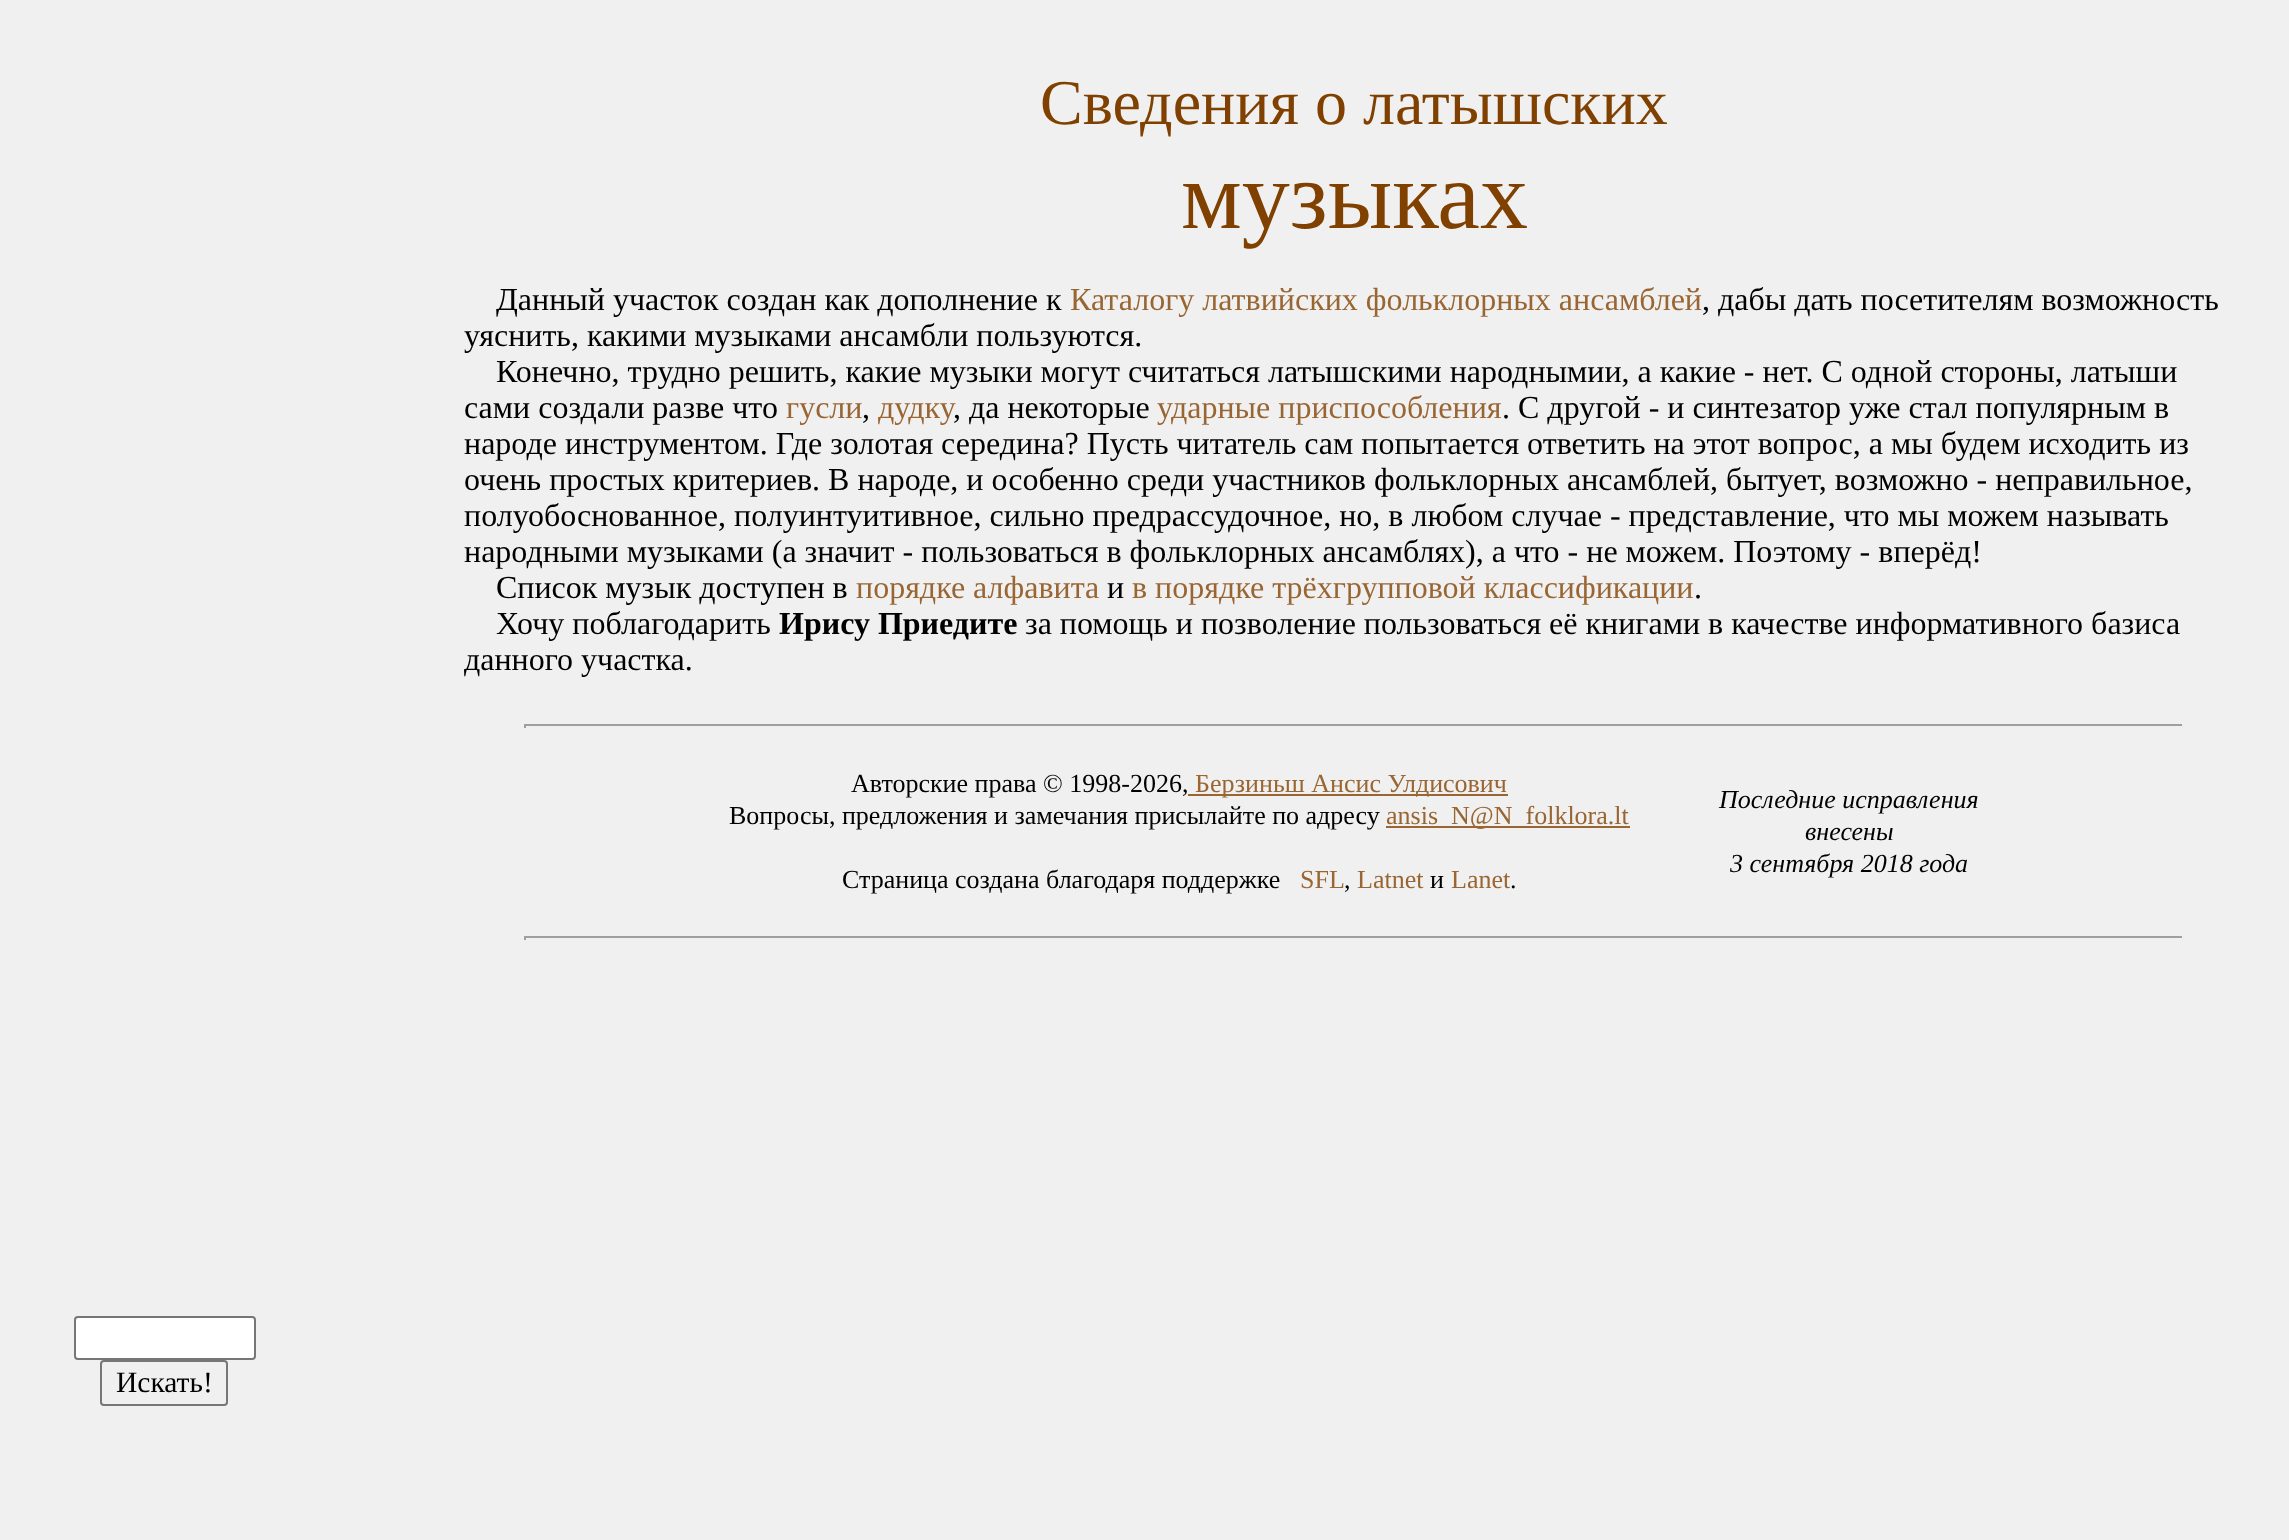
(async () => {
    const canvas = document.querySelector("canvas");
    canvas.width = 2289;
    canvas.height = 1540;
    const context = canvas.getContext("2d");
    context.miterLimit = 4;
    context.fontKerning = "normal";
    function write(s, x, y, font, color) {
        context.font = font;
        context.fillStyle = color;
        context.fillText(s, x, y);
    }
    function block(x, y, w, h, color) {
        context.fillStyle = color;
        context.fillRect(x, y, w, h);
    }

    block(0, 0, 2289, 1540, "rgb(240, 240, 240)");
    write("Сведения о латышских", 1040, 124, "64px Liberation Serif", "rgb(128, 64, 0)");
    write("музыках", 1181, 228, "96px Liberation Serif", "rgb(128, 64, 0)");
    write("Данный участок создан как дополнение к", 496, 310, "32px Liberation Serif", "rgb(0, 0, 0)");
    write("Каталогу латвийских фольклорных ансамблей", 1070, 310, "32px Liberation Serif", "rgb(153, 102, 51)");
    write(", дабы дать посетителям возможность", 1702, 310, "32px Liberation Serif", "rgb(0, 0, 0)");
    write("уяснить, какими музыками ансамбли пользуются.", 464, 346, "32px Liberation Serif", "rgb(0, 0, 0)");
    write("Конечно, трудно решить, какие музыки могут считаться латышскими народнымии, а какие - нет. С одной стороны, латыши", 496, 382, "32px Liberation Serif", "rgb(0, 0, 0)");
    write("сами создали разве что", 464, 418, "32px Liberation Serif", "rgb(0, 0, 0)");
    write("гусли", 786, 418, "32px Liberation Serif", "rgb(153, 102, 51)");
    write(",", 862, 418, "32px Liberation Serif", "rgb(0, 0, 0)");
    write("дудку", 878, 418, "32px Liberation Serif", "rgb(153, 102, 51)");
    write(", да некоторые", 953, 418, "32px Liberation Serif", "rgb(0, 0, 0)");
    write("ударные приспособления", 1157, 418, "32px Liberation Serif", "rgb(153, 102, 51)");
    write(". С другой - и синтезатор уже стал популярным в", 1502, 418, "32px Liberation Serif", "rgb(0, 0, 0)");
    write("народе инструментом. Где золотая середина? Пусть читатель сам попытается ответить на этот вопрос, а мы будем исходить из", 464, 454, "32px Liberation Serif", "rgb(0, 0, 0)");
    write("очень простых критериев. В народе, и особенно среди участников фольклорных ансамблей, бытует, возможно - неправильное,", 464, 490, "32px Liberation Serif", "rgb(0, 0, 0)");
    write("полуобоснованное, полуинтуитивное, сильно предрассудочное, но, в любом случае - представление, что мы можем называть", 464, 526, "32px Liberation Serif", "rgb(0, 0, 0)");
    write("народными музыками (а значит - пользоваться в фольклорных ансамблях), а что - не можем. Поэтому - вперёд!", 464, 562, "32px Liberation Serif", "rgb(0, 0, 0)");
    write("Список музык доступен в", 496, 598, "32px Liberation Serif", "rgb(0, 0, 0)");
    write("порядке алфавита", 856, 598, "32px Liberation Serif", "rgb(153, 102, 51)");
    write("и", 1107, 598, "32px Liberation Serif", "rgb(0, 0, 0)");
    write("в порядке трёхгрупповой классификации", 1132, 598, "32px Liberation Serif", "rgb(153, 102, 51)");
    write(".", 1694, 598, "32px Liberation Serif", "rgb(0, 0, 0)");
    write("Хочу поблагодарить", 496, 634, "32px Liberation Serif", "rgb(0, 0, 0)");
    write("Ирису Приедите", 779, 634, "bold 32px Liberation Serif", "rgb(0, 0, 0)");
    write("за помощь и позволение пользоваться её книгами в качестве информативного базиса", 1025, 634, "32px Liberation Serif", "rgb(0, 0, 0)");
    write("данного участка.", 464, 670, "32px Liberation Serif", "rgb(0, 0, 0)");
    block(524, 724, 1660, 2, "rgb(159, 159, 159)");
    block(2182, 724, 2, 4, "rgb(238, 238, 238)");
    block(524, 724, 2, 4, "rgb(159, 159, 159)");
    write("Авторские права © 1998-2026,", 851, 792, "26px Liberation Serif", "rgb(0, 0, 0)");
    block(1188, 794, 320, 2, "rgb(153, 102, 51)");
    write("Берзиньш Ансис Улдисович", 1195, 792, "26px Liberation Serif", "rgb(153, 102, 51)");
    write("Вопросы, предложения и замечания присылайте по адресу", 729, 824, "26px Liberation Serif", "rgb(0, 0, 0)");
    block(1386, 826, 244, 2, "rgb(153, 102, 51)");
    write("ansis_N@N_folklora.lt", 1386, 824, "26px Liberation Serif", "rgb(153, 102, 51)");
    write("Страница создана благодаря поддержке", 842, 888, "26px Liberation Serif", "rgb(0, 0, 0)");
    write("SFL", 1300, 888, "26px Liberation Serif", "rgb(153, 102, 51)");
    write(",", 1344, 888, "26px Liberation Serif", "rgb(0, 0, 0)");
    write("Latnet", 1357, 888, "26px Liberation Serif", "rgb(153, 102, 51)");
    write("и", 1430, 888, "26px Liberation Serif", "rgb(0, 0, 0)");
    write("Lanet", 1451, 888, "26px Liberation Serif", "rgb(153, 102, 51)");
    write(".", 1510, 888, "26px Liberation Serif", "rgb(0, 0, 0)");
    write("Последние исправления", 1719, 808, "italic 26px Liberation Serif", "rgb(0, 0, 0)");
    write("внесены", 1805, 840, "italic 26px Liberation Serif", "rgb(0, 0, 0)");
    write("3 сентября 2018 года", 1730, 872, "italic 26px Liberation Serif", "rgb(0, 0, 0)");
    block(524, 936, 1660, 2, "rgb(159, 159, 159)");
    block(2182, 936, 2, 4, "rgb(238, 238, 238)");
    block(524, 936, 2, 4, "rgb(159, 159, 159)");
    context.fillStyle = "rgb(255, 255, 255)";
    context.beginPath();
    context.roundRect(75, 1317, 180, 42, 3);
    context.fill();
    context.strokeStyle = "rgb(118, 118, 118)";
    context.lineWidth = 2;
    context.stroke();
    context.beginPath();
    context.roundRect(101, 1361, 126, 44, 3);
    context.stroke();
    write("Искать!", 116, 1392, "29.5px Liberation Serif", "rgb(0, 0, 0)");
})();
